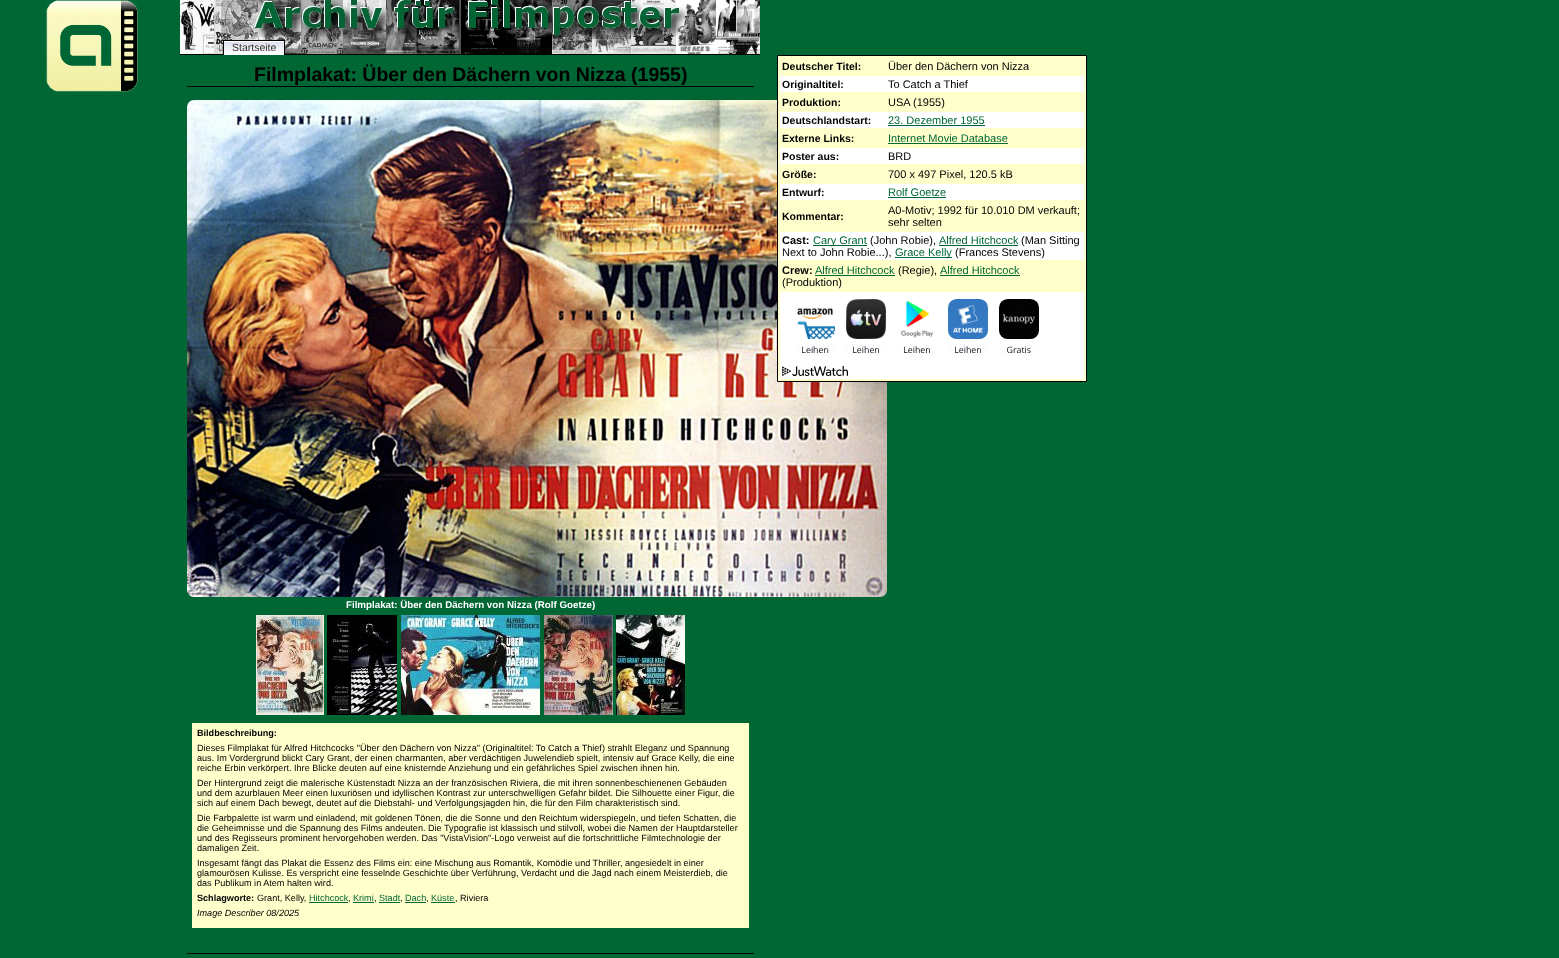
(async () => {
    const canvas = document.querySelector("canvas");
    canvas.width = 1559;
    canvas.height = 958;
    const context = canvas.getContext("2d");
    context.miterLimit = 4;
    context.fontKerning = "normal";
    function write(s, x, y, font, color) {
        context.font = font;
        context.fillStyle = color;
        context.fillText(s, x, y);
    }
    function block(x, y, w, h, color) {
        context.fillStyle = color;
        context.fillRect(x, y, w, h);
    }
    async function photo(src, x, y, w, h) {
        const img = new Image();
        img.src = src;
        await img.decode();
        context.drawImage(img, x, y, w, h);
    }

    block(0, 0, 1559, 958, "rgb(0, 102, 51)");
    await photo("media/1.png", 46, 0, 92, 92);
    block(180, 54, 580, 1, "rgb(0, 0, 0)");
    await photo("media/2.png", 180, 0, 580, 54);
    block(224, 41, 60, 14, "rgb(255, 255, 255)");
    await photo("media/3.png", 224, 42, 60, 11);
    block(223, 40, 62, 1, "rgb(0, 0, 0)");
    block(284, 40, 1, 15, "rgb(0, 0, 0)");
    block(223, 40, 1, 15, "rgb(0, 0, 0)");
    write("Startseite", 232, 51, "10.5px Liberation Sans", "rgb(51, 51, 51)");
    block(187, 86, 567, 1, "rgb(0, 0, 0)");
    write("Filmplakat: Über den Dächern von Nizza (1955)", 254, 81, "bold 19.5px Liberation Sans", "rgb(0, 0, 0)");
    await photo("media/6.png", 187, 100, 700, 497);
    context.fillStyle = "rgb(255, 255, 204)";
    context.beginPath();
    context.rect(777.5, 55.5, 309, 326);
    context.fill();
    context.strokeStyle = "rgb(0, 0, 0)";
    context.stroke();
    write("Deutscher Titel:", 782, 70, "bold 10.5px Liberation Sans", "rgb(0, 0, 0)");
    write("Über den Dächern von Nizza", 888, 70, "11px Liberation Sans", "rgb(0, 0, 0)");
    block(780, 76, 304, 16, "rgb(255, 255, 255)");
    write("Originaltitel:", 782, 88, "bold 10.5px Liberation Sans", "rgb(0, 0, 0)");
    write("To Catch a Thief", 888, 88, "11px Liberation Sans", "rgb(0, 0, 0)");
    write("Produktion:", 782, 106, "bold 10.5px Liberation Sans", "rgb(0, 0, 0)");
    write("USA (1955)", 888, 106, "11px Liberation Sans", "rgb(0, 0, 0)");
    block(780, 112, 304, 16, "rgb(255, 255, 255)");
    write("Deutschlandstart:", 782, 124, "bold 10.5px Liberation Sans", "rgb(0, 0, 0)");
    write("23. Dezember 1955", 888, 124, "11px Liberation Sans", "rgb(0, 102, 51)");
    block(888, 125, 97, 1, "rgb(0, 102, 51)");
    write("Externe Links:", 782, 142, "bold 10.5px Liberation Sans", "rgb(0, 0, 0)");
    write("Internet Movie Database", 888, 142, "11px Liberation Sans", "rgb(0, 102, 51)");
    block(888, 143, 120, 1, "rgb(0, 102, 51)");
    block(780, 148, 304, 16, "rgb(255, 255, 255)");
    write("Poster aus:", 782, 160, "bold 10.5px Liberation Sans", "rgb(0, 0, 0)");
    write("BRD", 888, 160, "11px Liberation Sans", "rgb(0, 0, 0)");
    write("Größe:", 782, 178, "bold 10.5px Liberation Sans", "rgb(0, 0, 0)");
    write("700 x 497 Pixel, 120.5 kB", 888, 178, "11px Liberation Sans", "rgb(0, 0, 0)");
    block(780, 184, 304, 16, "rgb(255, 255, 255)");
    write("Entwurf:", 782, 196, "bold 10.5px Liberation Sans", "rgb(0, 0, 0)");
    write("Rolf Goetze", 888, 196, "11px Liberation Sans", "rgb(0, 102, 51)");
    block(888, 197, 58, 1, "rgb(0, 102, 51)");
    write("Kommentar:", 782, 220, "bold 10.5px Liberation Sans", "rgb(0, 0, 0)");
    write("A0-Motiv; 1992 für 10.010 DM verkauft;", 888, 214, "11px Liberation Sans", "rgb(0, 0, 0)");
    write("sehr selten", 888, 226, "11px Liberation Sans", "rgb(0, 0, 0)");
    block(780, 232, 304, 28, "rgb(255, 255, 255)");
    write("Cast:", 782, 244, "bold 11px Liberation Sans", "rgb(0, 0, 0)");
    block(813, 245, 54, 1, "rgb(0, 102, 51)");
    write("Cary Grant", 813, 244, "11px Liberation Sans", "rgb(0, 102, 51)");
    write("(John Robie),", 870, 244, "11px Liberation Sans", "rgb(0, 0, 0)");
    write("Alfred Hitchcock", 939, 244, "11px Liberation Sans", "rgb(0, 102, 51)");
    block(939, 245, 79, 1, "rgb(0, 102, 51)");
    write("(Man Sitting", 1021, 244, "11px Liberation Sans", "rgb(0, 0, 0)");
    write("Next to John Robie...),", 782, 256, "11px Liberation Sans", "rgb(0, 0, 0)");
    block(895, 257, 57, 1, "rgb(0, 102, 51)");
    write("Grace Kelly", 895, 256, "11px Liberation Sans", "rgb(0, 102, 51)");
    write("(Frances Stevens)", 955, 256, "11px Liberation Sans", "rgb(0, 0, 0)");
    write("Crew:", 782, 274, "bold 11px Liberation Sans", "rgb(0, 0, 0)");
    write("Alfred Hitchcock", 815, 274, "11px Liberation Sans", "rgb(0, 102, 51)");
    block(815, 275, 80, 1, "rgb(0, 102, 51)");
    write("(Regie),", 898, 274, "11px Liberation Sans", "rgb(0, 0, 0)");
    write("Alfred Hitchcock", 940, 274, "11px Liberation Sans", "rgb(0, 102, 51)");
    block(940, 275, 80, 1, "rgb(0, 102, 51)");
    write("(Produktion)", 782, 286, "11px Liberation Sans", "rgb(0, 0, 0)");
    block(780, 292, 304, 87, "rgb(255, 255, 255)");
    await photo("media/4.png", 797, 299, 242, 54);
    await photo("media/5.png", 782, 366, 66, 10);
    write("Filmplakat: Über den Dächern von Nizza (Rolf Goetze)", 346, 608, "bold 9.75px Liberation Sans", "rgb(255, 255, 255)");
    await photo("media/7.png", 256, 615, 68, 100);
    await photo("media/8.png", 327, 615, 70, 100);
    await photo("media/9.png", 401, 615, 139, 100);
    await photo("media/10.png", 544, 615, 69, 100);
    await photo("media/11.png", 616, 615, 69, 100);
    block(192, 723, 557, 205, "rgb(255, 255, 204)");
    write("Bildbeschreibung:", 197, 736, "bold 9.1px Liberation Sans", "rgb(0, 0, 0)");
    write("Dieses Filmplakat für Alfred Hitchcocks \"Über den Dächern von Nizza\" (Originaltitel: To Catch a Thief) strahlt Eleganz und Spannung", 197, 751, "9.1px Liberation Sans", "rgb(0, 0, 0)");
    write("aus. Im Vordergrund blickt Cary Grant, der einen charmanten, aber verdächtigen Juwelendieb spielt, intensiv auf Grace Kelly, die eine", 197, 761, "9.1px Liberation Sans", "rgb(0, 0, 0)");
    write("reiche Erbin verkörpert. Ihre Blicke deuten auf eine knisternde Anziehung und ein gefährliches Spiel zwischen ihnen hin.", 197, 771, "9.1px Liberation Sans", "rgb(0, 0, 0)");
    write("Der Hintergrund zeigt die malerische Küstenstadt Nizza an der französischen Riviera, die mit ihren sonnenbeschienenen Gebäuden", 197, 786, "9.1px Liberation Sans", "rgb(0, 0, 0)");
    write("und dem azurblauen Meer einen luxuriösen und idyllischen Kontrast zur unterschwelligen Gefahr bildet. Die Silhouette einer Figur, die", 197, 796, "9.1px Liberation Sans", "rgb(0, 0, 0)");
    write("sich auf einem Dach bewegt, deutet auf die Diebstahl- und Verfolgungsjagden hin, die für den Film charakteristisch sind.", 197, 806, "9.1px Liberation Sans", "rgb(0, 0, 0)");
    write("Die Farbpalette ist warm und einladend, mit goldenen Tönen, die die Sonne und den Reichtum widerspiegeln, und tiefen Schatten, die", 197, 821, "9.1px Liberation Sans", "rgb(0, 0, 0)");
    write("die Geheimnisse und die Spannung des Films andeuten. Die Typografie ist klassisch und stilvoll, wobei die Namen der Hauptdarsteller", 197, 831, "9.1px Liberation Sans", "rgb(0, 0, 0)");
    write("und des Regisseurs prominent hervorgehoben werden. Das \"VistaVision\"-Logo verweist auf die fortschrittliche Filmtechnologie der", 197, 841, "9.1px Liberation Sans", "rgb(0, 0, 0)");
    write("damaligen Zeit.", 197, 851, "9.1px Liberation Sans", "rgb(0, 0, 0)");
    write("Insgesamt fängt das Plakat die Essenz des Films ein: eine Mischung aus Romantik, Komödie und Thriller, angesiedelt in einer", 197, 866, "9.1px Liberation Sans", "rgb(0, 0, 0)");
    write("glamourösen Kulisse. Es verspricht eine fesselnde Geschichte über Verführung, Verdacht und die Jagd nach einem Meisterdieb, die", 197, 876, "9.1px Liberation Sans", "rgb(0, 0, 0)");
    write("das Publikum in Atem halten wird.", 197, 886, "9.1px Liberation Sans", "rgb(0, 0, 0)");
    write("Schlagworte:", 197, 901, "bold 9.1px Liberation Sans", "rgb(0, 0, 0)");
    write("Grant, Kelly,", 257, 901, "9.1px Liberation Sans", "rgb(0, 0, 0)");
    write("Hitchcock", 309, 901, "9.1px Liberation Sans", "rgb(0, 102, 51)");
    block(309, 902, 39, 1, "rgb(0, 102, 51)");
    write(",", 348, 901, "9.1px Liberation Sans", "rgb(0, 0, 0)");
    write("Krimi", 353, 901, "9.1px Liberation Sans", "rgb(0, 102, 51)");
    block(353, 902, 21, 1, "rgb(0, 102, 51)");
    write(",", 374, 901, "9.1px Liberation Sans", "rgb(0, 0, 0)");
    write("Stadt", 379, 901, "9.1px Liberation Sans", "rgb(0, 102, 51)");
    block(379, 902, 21, 1, "rgb(0, 102, 51)");
    write(",", 400, 901, "9.1px Liberation Sans", "rgb(0, 0, 0)");
    write("Dach", 405, 901, "9.1px Liberation Sans", "rgb(0, 102, 51)");
    block(405, 902, 21, 1, "rgb(0, 102, 51)");
    write(",", 426, 901, "9.1px Liberation Sans", "rgb(0, 0, 0)");
    write("Küste", 431, 901, "9.1px Liberation Sans", "rgb(0, 102, 51)");
    block(431, 902, 24, 1, "rgb(0, 102, 51)");
    write(", Riviera", 455, 901, "9.1px Liberation Sans", "rgb(0, 0, 0)");
    write("Image Describer 08/2025", 197, 916, "italic 9.1px Liberation Sans", "rgb(0, 0, 0)");
    block(187, 953, 567, 1, "rgb(0, 0, 0)");
})();
